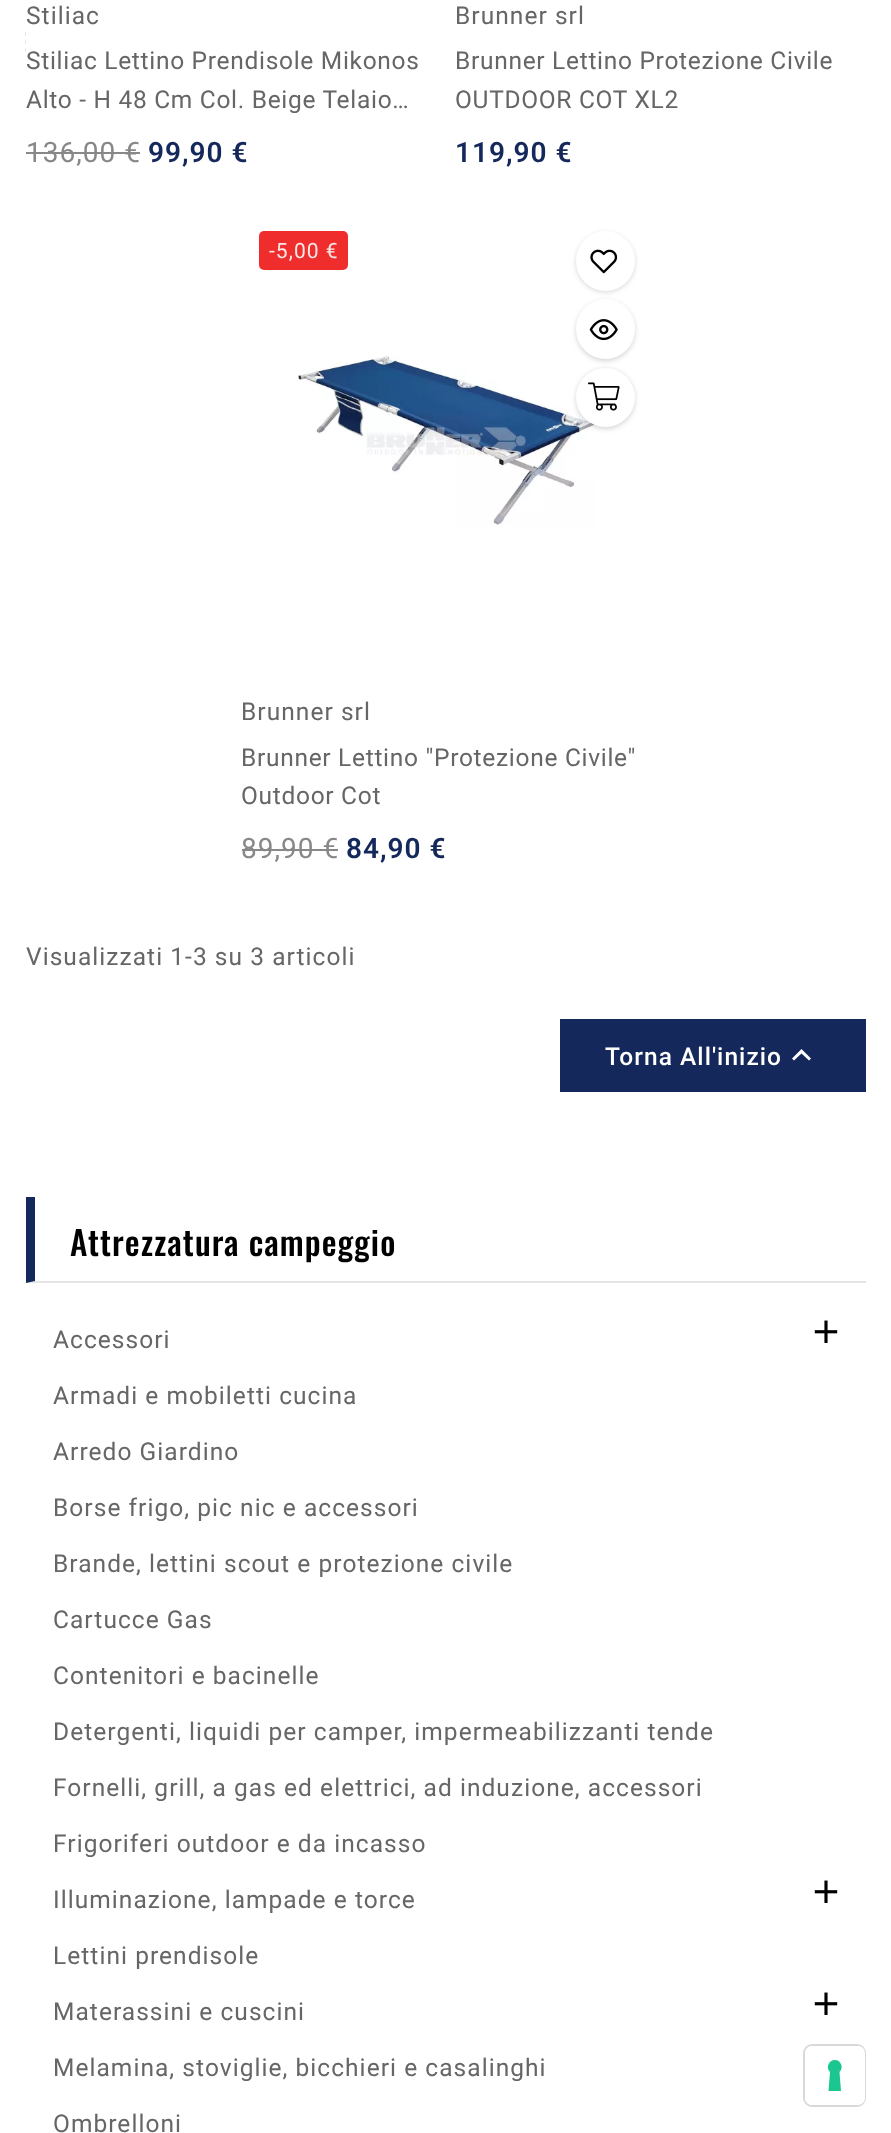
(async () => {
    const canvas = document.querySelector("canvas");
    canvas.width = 891;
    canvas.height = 2133;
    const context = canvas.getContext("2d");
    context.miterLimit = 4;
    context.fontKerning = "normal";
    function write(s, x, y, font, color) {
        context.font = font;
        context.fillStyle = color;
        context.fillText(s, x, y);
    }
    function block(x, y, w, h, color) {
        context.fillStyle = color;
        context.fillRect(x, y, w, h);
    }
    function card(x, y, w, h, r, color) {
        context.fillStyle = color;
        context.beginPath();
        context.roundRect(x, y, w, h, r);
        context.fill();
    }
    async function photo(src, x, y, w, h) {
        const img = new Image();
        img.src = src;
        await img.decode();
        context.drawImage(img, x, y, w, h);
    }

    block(0, 0, 891, 2133, "rgb(255, 255, 255)");
    await photo("media/1.png", 25, 32, 1, 20);
    context.letterSpacing = "1.05px";
    write("Stiliac", 26, 24, "24.5px Roboto", "rgb(102, 102, 102)");
    context.letterSpacing = "0.7px";
    write("Stiliac Lettino Prendisole Mikonos", 26, 69, "24.5px Roboto", "rgb(102, 102, 102)");
    write("Alto - H 48 Cm Col. Beige Telaio…", 26, 108, "24.5px Roboto", "rgb(102, 102, 102)");
    context.letterSpacing = "1px";
    write("136,00 €", 26, 162, "28px Roboto", "rgb(136, 136, 136)");
    block(26, 152, 114, 2, "rgb(136, 136, 136)");
    write("99,90 €", 148, 162, "600 28px Roboto", "rgb(21, 40, 91)");
    context.letterSpacing = "1.05px";
    write("Brunner srl", 455, 24, "24.5px Roboto", "rgb(102, 102, 102)");
    context.letterSpacing = "0.7px";
    write("Brunner Lettino Protezione Civile", 455, 69, "24.5px Roboto", "rgb(102, 102, 102)");
    write("OUTDOOR COT XL2", 455, 108, "24.5px Roboto", "rgb(102, 102, 102)");
    context.letterSpacing = "1px";
    write("119,90 €", 455, 162, "600 28px Roboto", "rgb(21, 40, 91)");
    card(259, 231, 89, 39, 5, "rgb(239, 45, 45)");
    context.letterSpacing = "1.05px";
    write("-5,00 €", 269, 258, "21px Roboto", "rgb(251, 233, 231)");
    context.fillStyle = "rgba(0, 0, 0, 0.16)";
    context.filter = "blur(2.5px)";
    context.beginPath();
    context.roundRect(576, 233, 59, 59, 29.5);
    context.fill();
    context.filter = "none";
    card(576, 231, 59, 60, 29.5, "rgb(255, 255, 255)");
    await photo("media/2.png", 590, 249, 28, 25);
    await photo("media/5.png", 298, 356, 298, 170);
    context.fillStyle = "rgba(0, 0, 0, 0.16)";
    context.filter = "blur(2.5px)";
    context.beginPath();
    context.roundRect(576, 301, 59, 60, 29.5);
    context.fill();
    context.filter = "none";
    card(576, 299, 59, 60, 29.5, "rgb(255, 255, 255)");
    await photo("media/3.png", 589, 319, 29, 22);
    context.fillStyle = "rgba(0, 0, 0, 0.16)";
    context.filter = "blur(2.5px)";
    context.beginPath();
    context.roundRect(576, 369, 59, 60, 29.5);
    context.fill();
    context.filter = "none";
    context.fillStyle = "rgb(255, 255, 255)";
    context.beginPath();
    context.arc(605.5, 397.5, 29.5, 0, Math.PI * 2);
    context.fill();
    await photo("media/4.png", 588, 382, 32, 29);
    write("Brunner srl", 241, 720, "24.5px Roboto", "rgb(102, 102, 102)");
    context.letterSpacing = "0.7px";
    write("Brunner Lettino \"Protezione Civile\"", 241, 766, "24.5px Roboto", "rgb(102, 102, 102)");
    write("Outdoor Cot", 241, 804, "24.5px Roboto", "rgb(102, 102, 102)");
    context.letterSpacing = "1px";
    write("89,90 €", 241, 858, "28px Roboto", "rgb(136, 136, 136)");
    block(242, 849, 96, 2, "rgb(136, 136, 136)");
    write("84,90 €", 346, 858, "600 28px Roboto", "rgb(21, 40, 91)");
    context.letterSpacing = "1.05px";
    write("Visualizzati 1-3 su 3 articoli", 26, 965, "24.5px Roboto", "rgb(102, 102, 102)");
    block(560, 1019, 306, 73, "rgb(21, 40, 91)");
    write("Torna All'inizio", 605, 1065, "500 24.5px Roboto", "rgb(255, 255, 255)");
    context.beginPath();
    context.moveTo(794, 1060.5);
    context.lineTo(792, 1058.5);
    context.lineTo(801.5, 1049);
    context.lineTo(811, 1058.5);
    context.lineTo(809, 1060.5);
    context.lineTo(801.5, 1053.5);
    context.closePath();
    context.fill();
    context.fillStyle = "rgb(229, 229, 229)";
    context.beginPath();
    context.moveTo(866, 1283);
    context.lineTo(26, 1283);
    context.lineTo(35, 1281);
    context.lineTo(866, 1281);
    context.closePath();
    context.fill();
    context.fillStyle = "rgb(21, 40, 91)";
    context.beginPath();
    context.moveTo(26, 1283);
    context.lineTo(26, 1197);
    context.lineTo(35, 1197);
    context.lineTo(35, 1281);
    context.closePath();
    context.fill();
    write("Attrezzatura campeggio", 70, 1256, "500 33.25px Oswald", "rgb(0, 0, 0)");
    write("Accessori", 53, 1348, "24.5px Roboto", "rgb(102, 102, 102)");
    await photo("media/6.png", 814, 1320, 24, 23);
    write("Armadi e mobiletti cucina", 53, 1404, "24.5px Roboto", "rgb(102, 102, 102)");
    write("Arredo Giardino", 53, 1460, "24.5px Roboto", "rgb(102, 102, 102)");
    write("Borse frigo, pic nic e accessori", 53, 1516, "24.5px Roboto", "rgb(102, 102, 102)");
    write("Brande, lettini scout e protezione civile", 53, 1572, "24.5px Roboto", "rgb(102, 102, 102)");
    write("Cartucce Gas", 53, 1628, "24.5px Roboto", "rgb(102, 102, 102)");
    write("Contenitori e bacinelle", 53, 1684, "24.5px Roboto", "rgb(102, 102, 102)");
    write("Detergenti, liquidi per camper, impermeabilizzanti tende", 53, 1740, "24.5px Roboto", "rgb(102, 102, 102)");
    write("Fornelli, grill, a gas ed elettrici, ad induzione, accessori", 53, 1796, "24.5px Roboto", "rgb(102, 102, 102)");
    write("Frigoriferi outdoor e da incasso", 53, 1852, "24.5px Roboto", "rgb(102, 102, 102)");
    write("Illuminazione, lampade e torce", 53, 1908, "24.5px Roboto", "rgb(102, 102, 102)");
    await photo("media/6.png", 814, 1880, 24, 23);
    write("Lettini prendisole", 53, 1964, "24.5px Roboto", "rgb(102, 102, 102)");
    write("Materassini e cuscini", 53, 2020, "24.5px Roboto", "rgb(102, 102, 102)");
    await photo("media/6.png", 814, 1992, 24, 23);
    write("Melamina, stoviglie, bicchieri e casalinghi", 53, 2076, "24.5px Roboto", "rgb(102, 102, 102)");
    write("Ombrelloni", 53, 2132, "24.5px Roboto", "rgb(102, 102, 102)");
    context.beginPath();
    context.roundRect(804, 2045, 61, 61, 8);
    context.strokeStyle = "rgb(217, 217, 217)";
    context.lineWidth = 2;
    context.stroke();
    card(805, 2046, 60, 59, 7, "rgb(255, 255, 255)");
    context.fillStyle = "rgb(28, 198, 145)";
    context.beginPath();
    context.moveTo(835, 2060);
    context.bezierCurveTo(841, 2060, 844, 2068, 839.5, 2072);
    context.lineTo(841, 2091);
    context.lineTo(828.5, 2091);
    context.lineTo(830, 2072);
    context.bezierCurveTo(825.5, 2068, 828.5, 2060, 835, 2060);
    context.closePath();
    context.fill("evenodd");
})();
